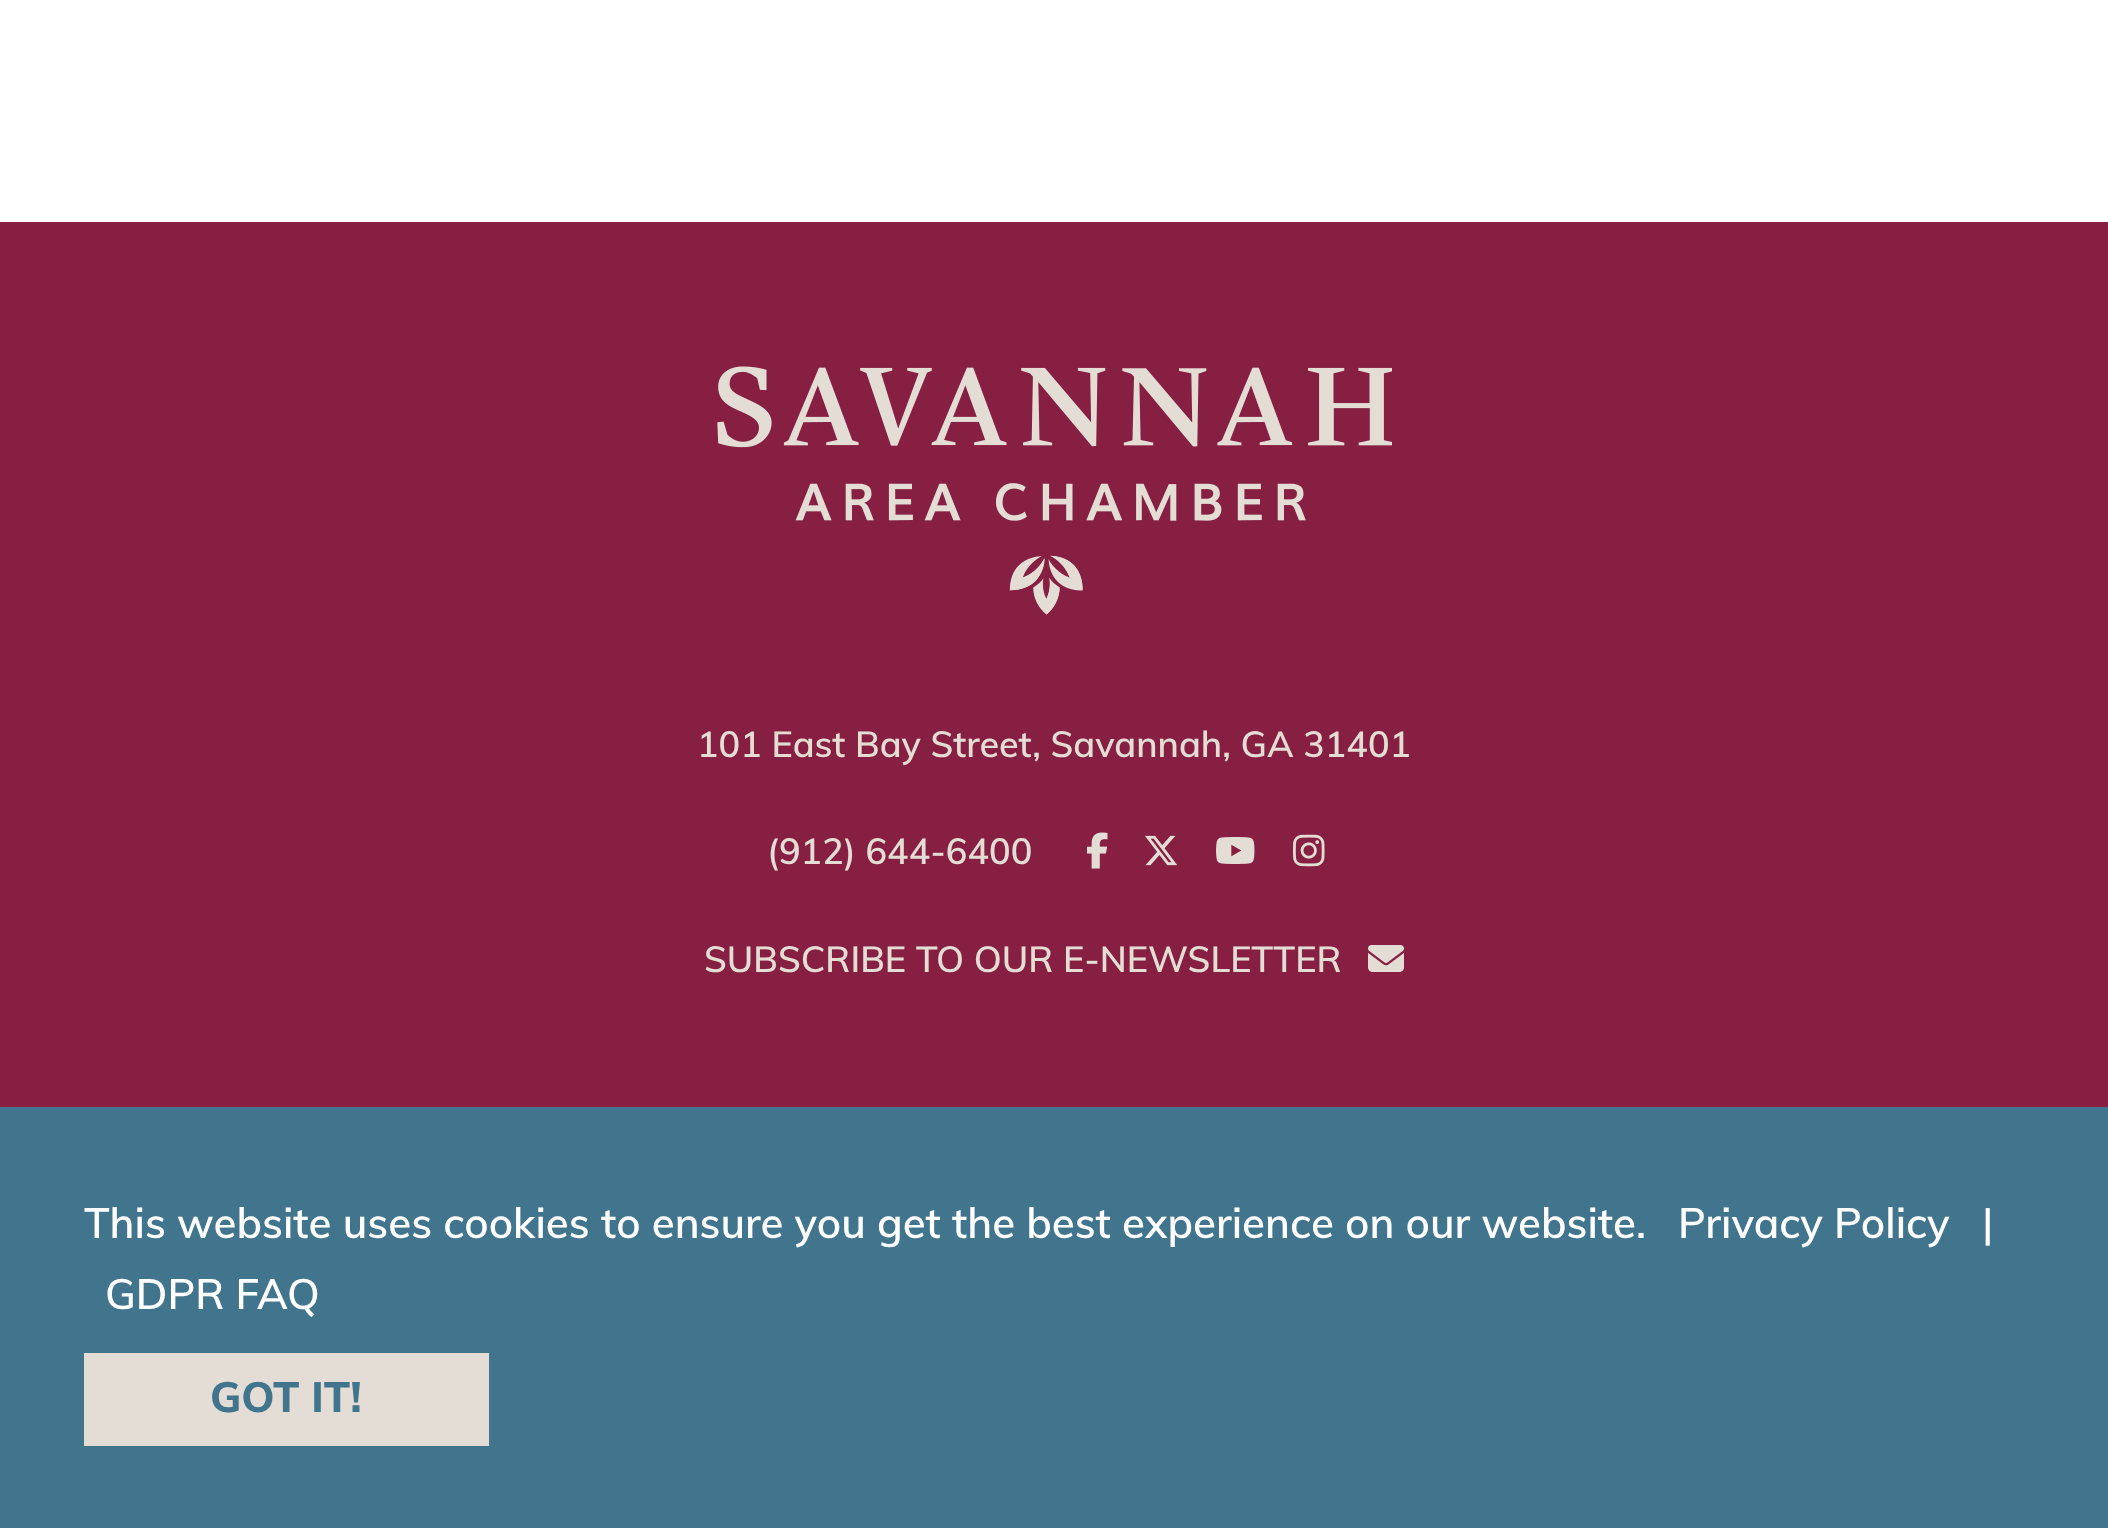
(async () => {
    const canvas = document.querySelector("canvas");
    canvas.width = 2108;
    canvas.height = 1528;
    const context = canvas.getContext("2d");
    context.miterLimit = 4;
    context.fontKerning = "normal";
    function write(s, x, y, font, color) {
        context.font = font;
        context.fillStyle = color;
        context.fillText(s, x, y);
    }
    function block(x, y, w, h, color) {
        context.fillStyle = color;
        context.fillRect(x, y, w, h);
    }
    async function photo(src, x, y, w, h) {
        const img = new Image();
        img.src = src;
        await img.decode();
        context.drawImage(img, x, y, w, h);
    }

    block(0, 0, 2108, 1528, "rgb(255, 255, 255)");
    block(0, 222, 2108, 885, "rgb(134, 31, 65)");
    await photo("media/1.png", 717, 366, 675, 249);
    write("101 East Bay Street, Savannah, GA 31401", 697, 757, "600 36px Muli", "rgb(227, 221, 214)");
    write("(912) 644-6400", 767, 864, "600 36px Muli", "rgb(227, 221, 214)");
    await photo("media/2.png", 1087, 832, 21, 37);
    await photo("media/3.png", 1145, 835, 33, 31);
    await photo("media/4.png", 1216, 837, 39, 27);
    await photo("media/5.png", 1293, 834, 32, 33);
    write("SUBSCRIBE TO OUR E-NEWSLETTER", 704, 972, "600 36px Muli", "rgb(227, 221, 214)");
    await photo("media/6.png", 1368, 945, 36, 27);
    block(0, 1107, 2108, 421, "rgb(65, 116, 141)");
    write("This website uses cookies to ensure you get the best experience on our website.", 84, 1238, "600 42px Muli", "rgb(255, 255, 255)");
    write("Privacy Policy", 1678, 1238, "600 42px Muli", "rgb(255, 255, 255)");
    write("|", 1982, 1238, "600 42px Muli", "rgb(255, 255, 255)");
    write("GDPR FAQ", 105, 1309, "600 42px Muli", "rgb(255, 255, 255)");
    block(84, 1353, 405, 93, "rgb(227, 221, 214)");
    write("GOT IT!", 210, 1412, "800 42px Muli", "rgb(65, 116, 141)");
})();
